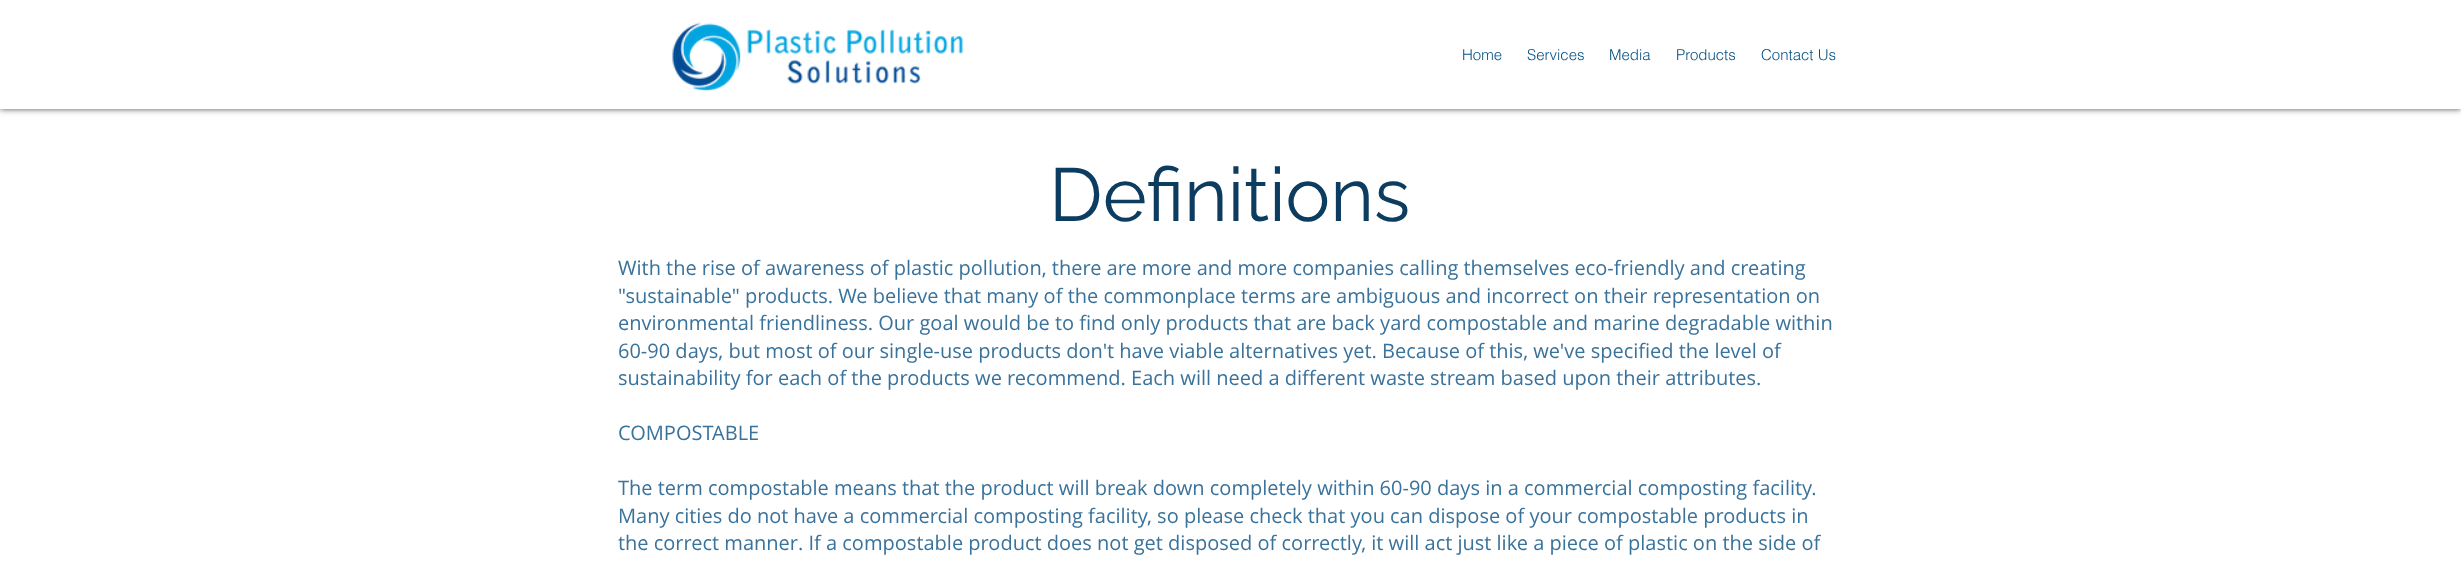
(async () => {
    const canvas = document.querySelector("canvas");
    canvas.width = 2461;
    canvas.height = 561;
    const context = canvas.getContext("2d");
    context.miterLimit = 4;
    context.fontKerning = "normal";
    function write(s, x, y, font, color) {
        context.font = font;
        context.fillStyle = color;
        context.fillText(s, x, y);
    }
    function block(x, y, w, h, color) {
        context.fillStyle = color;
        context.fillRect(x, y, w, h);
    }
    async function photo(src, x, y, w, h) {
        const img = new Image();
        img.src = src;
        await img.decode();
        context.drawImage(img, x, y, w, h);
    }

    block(0, 0, 2461, 561, "rgb(255, 255, 255)");
    context.save();
    context.beginPath();
    context.moveTo(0, 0);
    context.lineTo(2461, 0);
    context.lineTo(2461, 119);
    context.lineTo(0, 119);
    context.closePath();
    context.moveTo(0, 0);
    context.lineTo(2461, 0);
    context.lineTo(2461, 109);
    context.lineTo(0, 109);
    context.closePath();
    context.clip("evenodd");
    context.fillStyle = "rgba(0, 0, 0, 0.7)";
    context.filter = "blur(3px)";
    context.beginPath();
    context.rect(0, 0, 2461, 109);
    context.fill();
    context.filter = "none";
    context.restore();
    block(0, 108, 2461, 1, "rgba(255, 255, 255, 0.6)");
    await photo("media/1.png", 671, 22, 292, 69);
    write("Home", 1462, 60, "300 15px helvetica", "rgb(4, 81, 132)");
    write("Services", 1527, 60, "300 15px helvetica", "rgb(4, 81, 132)");
    write("Media", 1609, 60, "300 15px helvetica", "rgb(4, 81, 132)");
    write("Products", 1676, 60, "300 15px helvetica", "rgb(4, 81, 132)");
    write("Contact Us", 1761, 60, "300 15px helvetica", "rgb(4, 81, 132)");
    write("Definitions", 1049, 221, "75px Raleway", "rgb(12, 60, 96)");
    write("With the rise of awareness of plastic pollution, there are more and more companies calling themselves eco-friendly and creating", 618, 275, "20px Open Sans", "rgb(57, 114, 155)");
    write("\"sustainable\" products. We believe that many of the commonplace terms are ambiguous and incorrect on their representation on", 618, 303, "20px Open Sans", "rgb(57, 114, 155)");
    write("environmental friendliness. Our goal would be to find only products that are back yard compostable and marine degradable within", 618, 330, "20px Open Sans", "rgb(57, 114, 155)");
    write("60-90 days, but most of our single-use products don't have viable alternatives yet. Because of this, we've specified the level of", 618, 358, "20px Open Sans", "rgb(57, 114, 155)");
    write("sustainability for each of the products we recommend. Each will need a different waste stream based upon their attributes.", 618, 385, "20px Open Sans", "rgb(57, 114, 155)");
    write("COMPOSTABLE", 618, 440, "20px Open Sans", "rgb(57, 114, 155)");
    write("The term compostable means that the product will break down completely within 60-90 days in a commercial composting facility.", 618, 495, "20px Open Sans", "rgb(57, 114, 155)");
    write("Many cities do not have a commercial composting facility, so please check that you can dispose of your compostable products in", 618, 523, "20px Open Sans", "rgb(57, 114, 155)");
    write("the correct manner. If a compostable product does not get disposed of correctly, it will act just like a piece of plastic on the side of", 618, 550, "20px Open Sans", "rgb(57, 114, 155)");
})();
